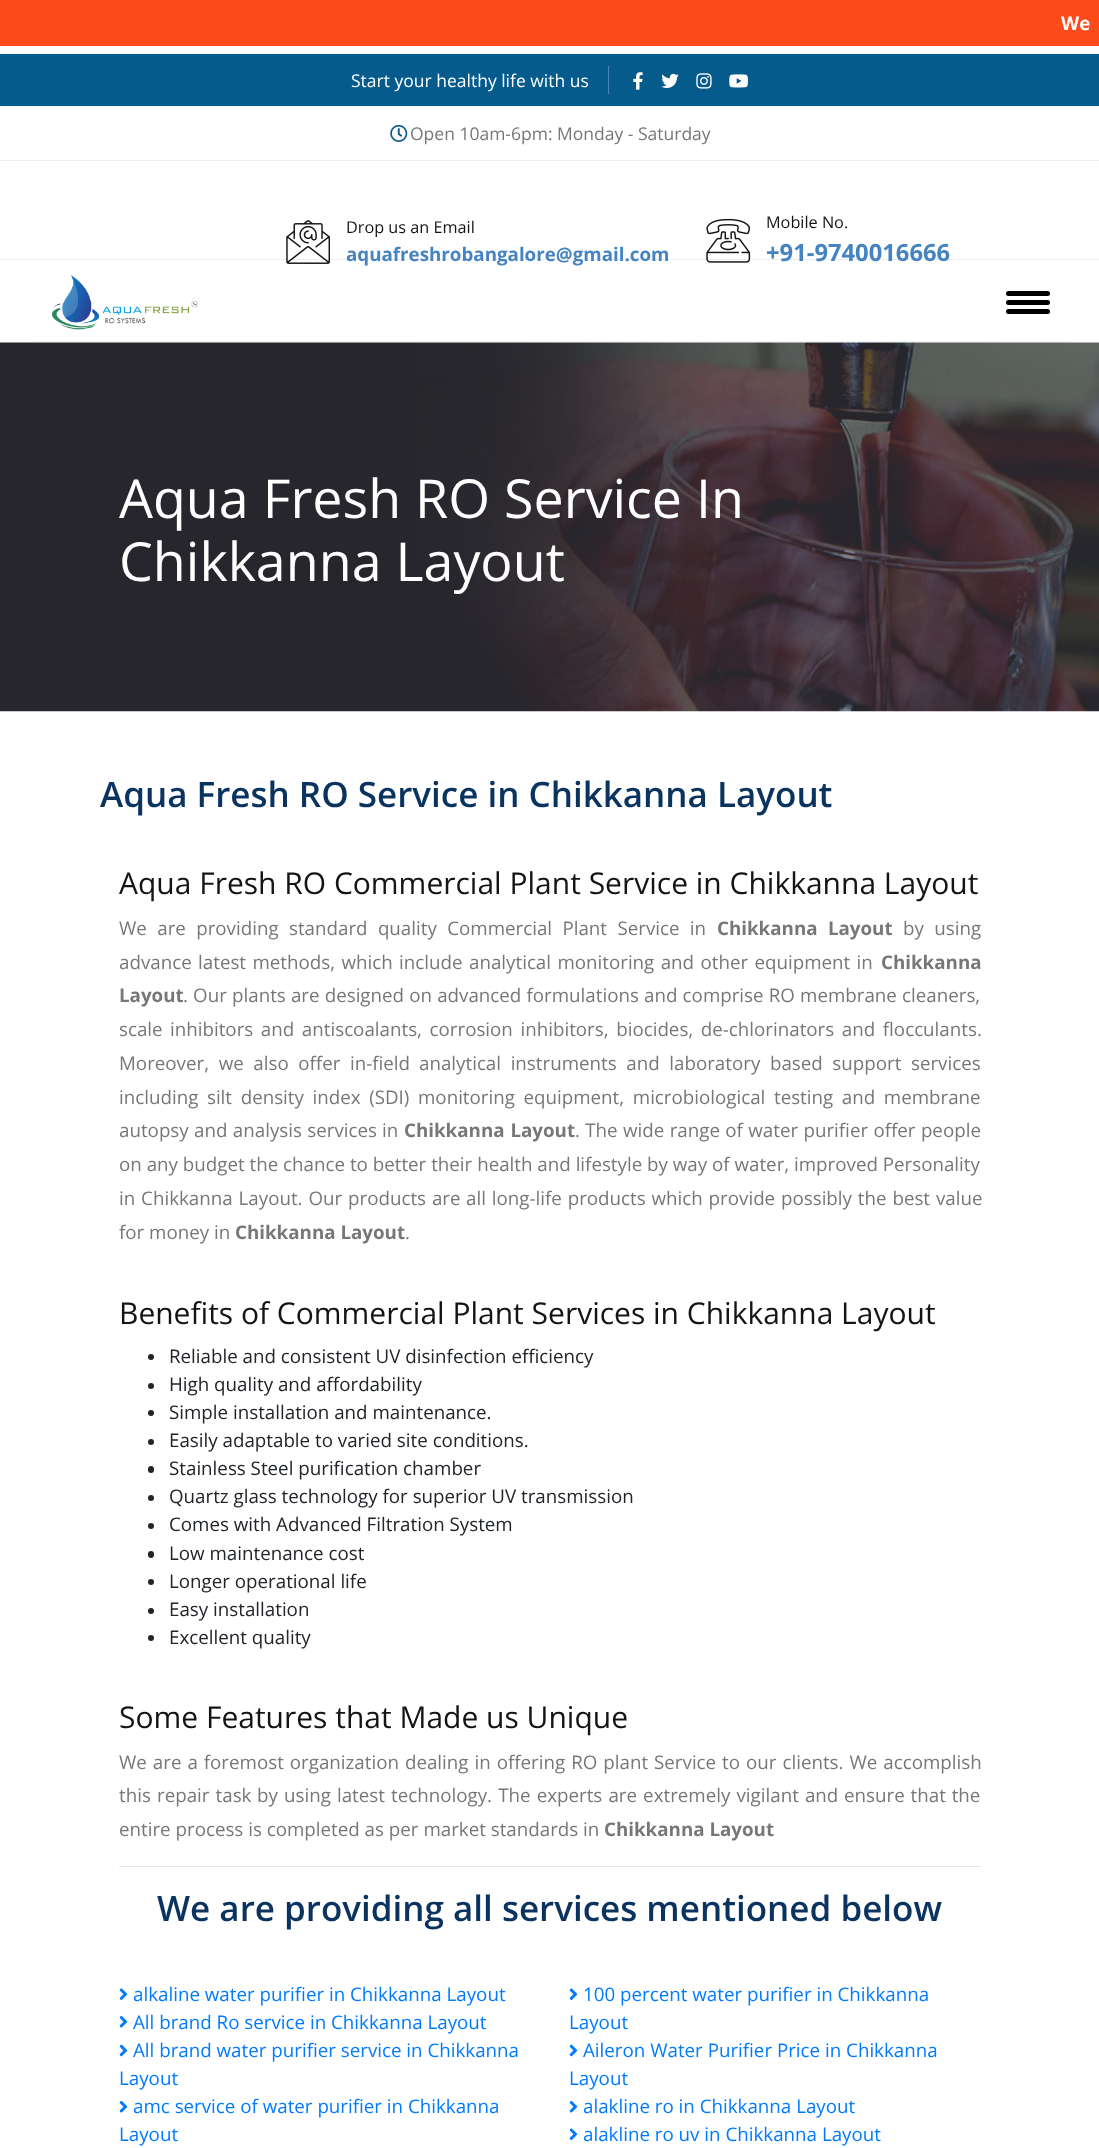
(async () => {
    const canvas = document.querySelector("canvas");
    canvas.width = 1099;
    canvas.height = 2148;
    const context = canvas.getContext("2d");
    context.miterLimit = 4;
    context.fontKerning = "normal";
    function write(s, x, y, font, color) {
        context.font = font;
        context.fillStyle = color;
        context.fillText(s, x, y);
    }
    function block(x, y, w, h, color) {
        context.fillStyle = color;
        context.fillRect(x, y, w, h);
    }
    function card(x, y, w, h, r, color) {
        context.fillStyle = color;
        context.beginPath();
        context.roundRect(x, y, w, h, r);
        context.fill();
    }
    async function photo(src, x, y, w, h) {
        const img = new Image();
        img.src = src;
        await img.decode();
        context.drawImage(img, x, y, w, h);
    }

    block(0, 0, 1099, 2148, "rgb(255, 255, 255)");
    block(0, 0, 1099, 46, "rgb(252, 74, 26)");
    write("We", 1061, 30, "bold 18.75px Open Sans", "rgb(255, 255, 255)");
    block(0, 160, 1099, 1, "rgb(238, 238, 238)");
    block(0, 54, 119, 52, "rgb(5, 91, 140)");
    context.beginPath();
    context.moveTo(119, 54);
    context.lineTo(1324, 54);
    context.lineTo(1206, 106);
    context.lineTo(119, 106);
    context.closePath();
    context.fill();
    block(608, 66, 1, 28, "rgb(69, 132, 193)");
    write("Start your healthy life with us", 351, 87, "17.5px Open Sans", "rgb(255, 255, 255)");
    await photo("media/1.png", 633, 72, 10, 18);
    await photo("media/2.png", 661, 73, 18, 16);
    await photo("media/3.png", 696, 73, 16, 16);
    await photo("media/4.png", 729, 74, 19, 14);
    await photo("media/5.png", 390, 125, 18, 17);
    write("Open 10am-6pm: Monday - Saturday", 410, 140, "17.5px Open Sans", "rgb(119, 119, 119)");
    block(0, 259, 1099, 1, "rgb(238, 238, 238)");
    await photo("media/6.png", 286, 220, 44, 44);
    write("Drop us an Email", 346, 233, "16.25px Open Sans", "rgb(20, 20, 20)");
    write("aquafreshrobangalore@gmail.com", 346, 261, "bold 18.75px Open Sans", "rgb(69, 132, 193)");
    await photo("media/7.png", 706, 218, 45, 45);
    write("Mobile No.", 766, 228, "16.25px Open Sans", "rgb(20, 20, 20)");
    write("+91-9740016666", 766, 261, "bold 23.75px Open Sans", "rgb(69, 132, 193)");
    await photo("media/8.png", 52, 275, 146, 55);
    block(31, 341, 1038, 1, "rgb(247, 247, 247)");
    card(1006, 291, 44, 5, 2.5, "rgb(0, 0, 0)");
    card(1006, 300, 44, 5, 2.5, "rgb(0, 0, 0)");
    card(1006, 309, 44, 5, 2.5, "rgb(0, 0, 0)");
    await photo("media/9.png", 0, 342, 1099, 370);
    write("Aqua Fresh RO Service In", 119, 518, "53.75px Open Sans", "rgb(255, 255, 255)");
    write("Chikkanna Layout", 119, 581, "53.75px Open Sans", "rgb(255, 255, 255)");
    write("Aqua Fresh RO Service in Chikkanna Layout", 100, 807, "600 35px Open Sans", "rgb(10, 51, 95)");
    write("Aqua Fresh RO Commercial Plant Service in Chikkanna Layout", 119, 894, "30px Open Sans", "rgb(20, 20, 20)");
    context.wordSpacing = "5.5px";
    write("We are providing standard quality Commercial Plant Service in", 119, 935, "18.75px Open Sans", "rgb(119, 119, 119)");
    write("Chikkanna Layout", 717, 935, "bold 18.75px Open Sans", "rgb(119, 119, 119)");
    write("by using", 903, 935, "18.75px Open Sans", "rgb(119, 119, 119)");
    context.wordSpacing = "1.5px";
    write("advance latest methods, which include", 119, 969, "18.75px Open Sans", "rgb(119, 119, 119)");
    write("analytical monitoring and other equipment in", 469, 969, "18.75px Open Sans", "rgb(119, 119, 119)");
    context.wordSpacing = "0px";
    write("Chikkanna", 881, 969, "bold 18.75px Open Sans", "rgb(119, 119, 119)");
    write("Layout", 119, 1002, "bold 18.75px Open Sans", "rgb(119, 119, 119)");
    context.wordSpacing = "0.3px";
    write(". Our plants are designed on advanced formulations and comprise RO membrane cleaners,", 183, 1002, "18.75px Open Sans", "rgb(119, 119, 119)");
    context.wordSpacing = "0px";
    write("scale", 119, 1036, "18.75px Open Sans", "rgb(119, 119, 119)");
    context.wordSpacing = "2.75px";
    write("inhibitors and antiscoalants, corrosion inhibitors, biocides, de-chlorinators and flocculants.", 170, 1036, "18.75px Open Sans", "rgb(119, 119, 119)");
    context.wordSpacing = "4.75px";
    write("Moreover, we also offer in-field", 119, 1070, "18.75px Open Sans", "rgb(119, 119, 119)");
    write("analytical instruments and laboratory based support services", 419, 1070, "18.75px Open Sans", "rgb(119, 119, 119)");
    context.wordSpacing = "3.75px";
    write("including silt density index (SDI) monitoring equipment, microbiological testing and membrane", 119, 1104, "18.75px Open Sans", "rgb(119, 119, 119)");
    context.wordSpacing = "0.5px";
    write("autopsy and analysis services", 119, 1137, "18.75px Open Sans", "rgb(119, 119, 119)");
    context.wordSpacing = "0px";
    write("in", 382, 1137, "18.75px Open Sans", "rgb(119, 119, 119)");
    context.wordSpacing = "1px";
    write("Chikkanna Layout", 404, 1137, "bold 18.75px Open Sans", "rgb(119, 119, 119)");
    context.wordSpacing = "0.5px";
    write(". The wide range of water purifier offer people", 575, 1137, "18.75px Open Sans", "rgb(119, 119, 119)");
    context.wordSpacing = "0px";
    write("on any budget the chance to better their health and lifestyle by way of water, improved Personality", 119, 1171, "18.75px Open Sans", "rgb(119, 119, 119)");
    context.wordSpacing = "1px";
    write("in Chikkanna Layout. Our products are", 119, 1205, "18.75px Open Sans", "rgb(119, 119, 119)");
    write("all long-life products which provide possibly the best value", 466, 1205, "18.75px Open Sans", "rgb(119, 119, 119)");
    context.wordSpacing = "0px";
    write("for money in", 119, 1239, "18.75px Open Sans", "rgb(119, 119, 119)");
    write("Chikkanna Layout", 235, 1239, "bold 18.75px Open Sans", "rgb(119, 119, 119)");
    write(".", 405, 1239, "18.75px Open Sans", "rgb(119, 119, 119)");
    write("Benefits of Commercial Plant Services in Chikkanna Layout", 119, 1324, "30px Open Sans", "rgb(20, 20, 20)");
    context.fillStyle = "rgb(33, 37, 41)";
    context.beginPath();
    context.arc(151, 1357, 3, 0, Math.PI * 2);
    context.fill();
    write("Reliable and consistent UV disinfection efficiency", 169, 1363, "18.75px Open Sans", "rgb(33, 37, 41)");
    context.beginPath();
    context.arc(151, 1386, 3, 0, Math.PI * 2);
    context.fill();
    write("High quality and affordability", 169, 1391, "18.75px Open Sans", "rgb(33, 37, 41)");
    context.beginPath();
    context.arc(151, 1413, 3, 0, Math.PI * 2);
    context.fill();
    write("Simple installation and maintenance.", 169, 1419, "18.75px Open Sans", "rgb(33, 37, 41)");
    context.beginPath();
    context.arc(151, 1442, 3, 0, Math.PI * 2);
    context.fill();
    write("Easily adaptable to varied site conditions.", 169, 1447, "18.75px Open Sans", "rgb(33, 37, 41)");
    card(148, 1466, 6, 7, 3, "rgb(33, 37, 41)");
    write("Stainless Steel purification chamber", 169, 1475, "18.75px Open Sans", "rgb(33, 37, 41)");
    context.beginPath();
    context.arc(151, 1498, 3, 0, Math.PI * 2);
    context.fill();
    write("Quartz glass technology for superior UV transmission", 169, 1503, "18.75px Open Sans", "rgb(33, 37, 41)");
    context.beginPath();
    context.arc(151, 1526, 3, 0, Math.PI * 2);
    context.fill();
    write("Comes with Advanced Filtration System", 169, 1531, "18.75px Open Sans", "rgb(33, 37, 41)");
    card(148, 1551, 6, 7, 3, "rgb(33, 37, 41)");
    write("Low maintenance cost", 169, 1560, "18.75px Open Sans", "rgb(33, 37, 41)");
    context.beginPath();
    context.arc(151, 1582, 3, 0, Math.PI * 2);
    context.fill();
    write("Longer operational life", 169, 1588, "18.75px Open Sans", "rgb(33, 37, 41)");
    context.beginPath();
    context.arc(151, 1611, 3, 0, Math.PI * 2);
    context.fill();
    write("Easy installation", 169, 1616, "18.75px Open Sans", "rgb(33, 37, 41)");
    context.beginPath();
    context.arc(151, 1638, 3, 0, Math.PI * 2);
    context.fill();
    write("Excellent quality", 169, 1644, "18.75px Open Sans", "rgb(33, 37, 41)");
    write("Some Features that Made us Unique", 119, 1728, "30px Open Sans", "rgb(20, 20, 20)");
    context.wordSpacing = "1.1px";
    write("We are a foremost organization dealing in offering RO plant Service to our clients. We accomplish", 119, 1769, "18.75px Open Sans", "rgb(119, 119, 119)");
    context.wordSpacing = "1.25px";
    write("this repair task", 119, 1802, "18.75px Open Sans", "rgb(119, 119, 119)");
    write("by using latest technology. The experts are extremely vigilant and", 257, 1802, "18.75px Open Sans", "rgb(119, 119, 119)");
    context.wordSpacing = "1px";
    write("ensure that the", 844, 1802, "18.75px Open Sans", "rgb(119, 119, 119)");
    context.wordSpacing = "0px";
    write("entire process is completed as per market standards in", 119, 1836, "18.75px Open Sans", "rgb(119, 119, 119)");
    write("Chikkanna Layout", 604, 1836, "bold 18.75px Open Sans", "rgb(119, 119, 119)");
    block(119, 1866, 862, 1, "rgb(230, 230, 230)");
    write("We are providing all services mentioned below", 157, 1921, "600 35px Open Sans", "rgb(10, 51, 95)");
    await photo("media/10.png", 119, 1988, 9, 12);
    write("alkaline water purifier in Chikkanna Layout", 133, 2001, "18.75px Open Sans", "rgb(0, 123, 255)");
    await photo("media/11.png", 119, 2015, 9, 13);
    write("All brand Ro service in Chikkanna Layout", 133, 2029, "18.75px Open Sans", "rgb(0, 123, 255)");
    await photo("media/12.png", 119, 2044, 9, 13);
    write("All brand water purifier service in Chikkanna", 133, 2057, "18.75px Open Sans", "rgb(0, 123, 255)");
    write("Layout", 119, 2085, "18.75px Open Sans", "rgb(0, 123, 255)");
    await photo("media/11.png", 119, 2100, 9, 13);
    write("amc service of water purifier in Chikkanna", 133, 2113, "18.75px Open Sans", "rgb(0, 123, 255)");
    write("Layout", 119, 2141, "18.75px Open Sans", "rgb(0, 123, 255)");
    await photo("media/10.png", 569, 1988, 9, 12);
    write("100 percent water purifier in Chikkanna", 583, 2001, "18.75px Open Sans", "rgb(0, 123, 255)");
    write("Layout", 569, 2029, "18.75px Open Sans", "rgb(0, 123, 255)");
    await photo("media/12.png", 569, 2044, 9, 13);
    write("Aileron Water Purifier Price in Chikkanna", 583, 2057, "18.75px Open Sans", "rgb(0, 123, 255)");
    write("Layout", 569, 2085, "18.75px Open Sans", "rgb(0, 123, 255)");
    await photo("media/11.png", 569, 2100, 9, 13);
    write("alakline ro in Chikkanna Layout", 583, 2113, "18.75px Open Sans", "rgb(0, 123, 255)");
    await photo("media/10.png", 569, 2128, 9, 12);
    write("alakline ro uv in Chikkanna Layout", 583, 2141, "18.75px Open Sans", "rgb(0, 123, 255)");
})();
